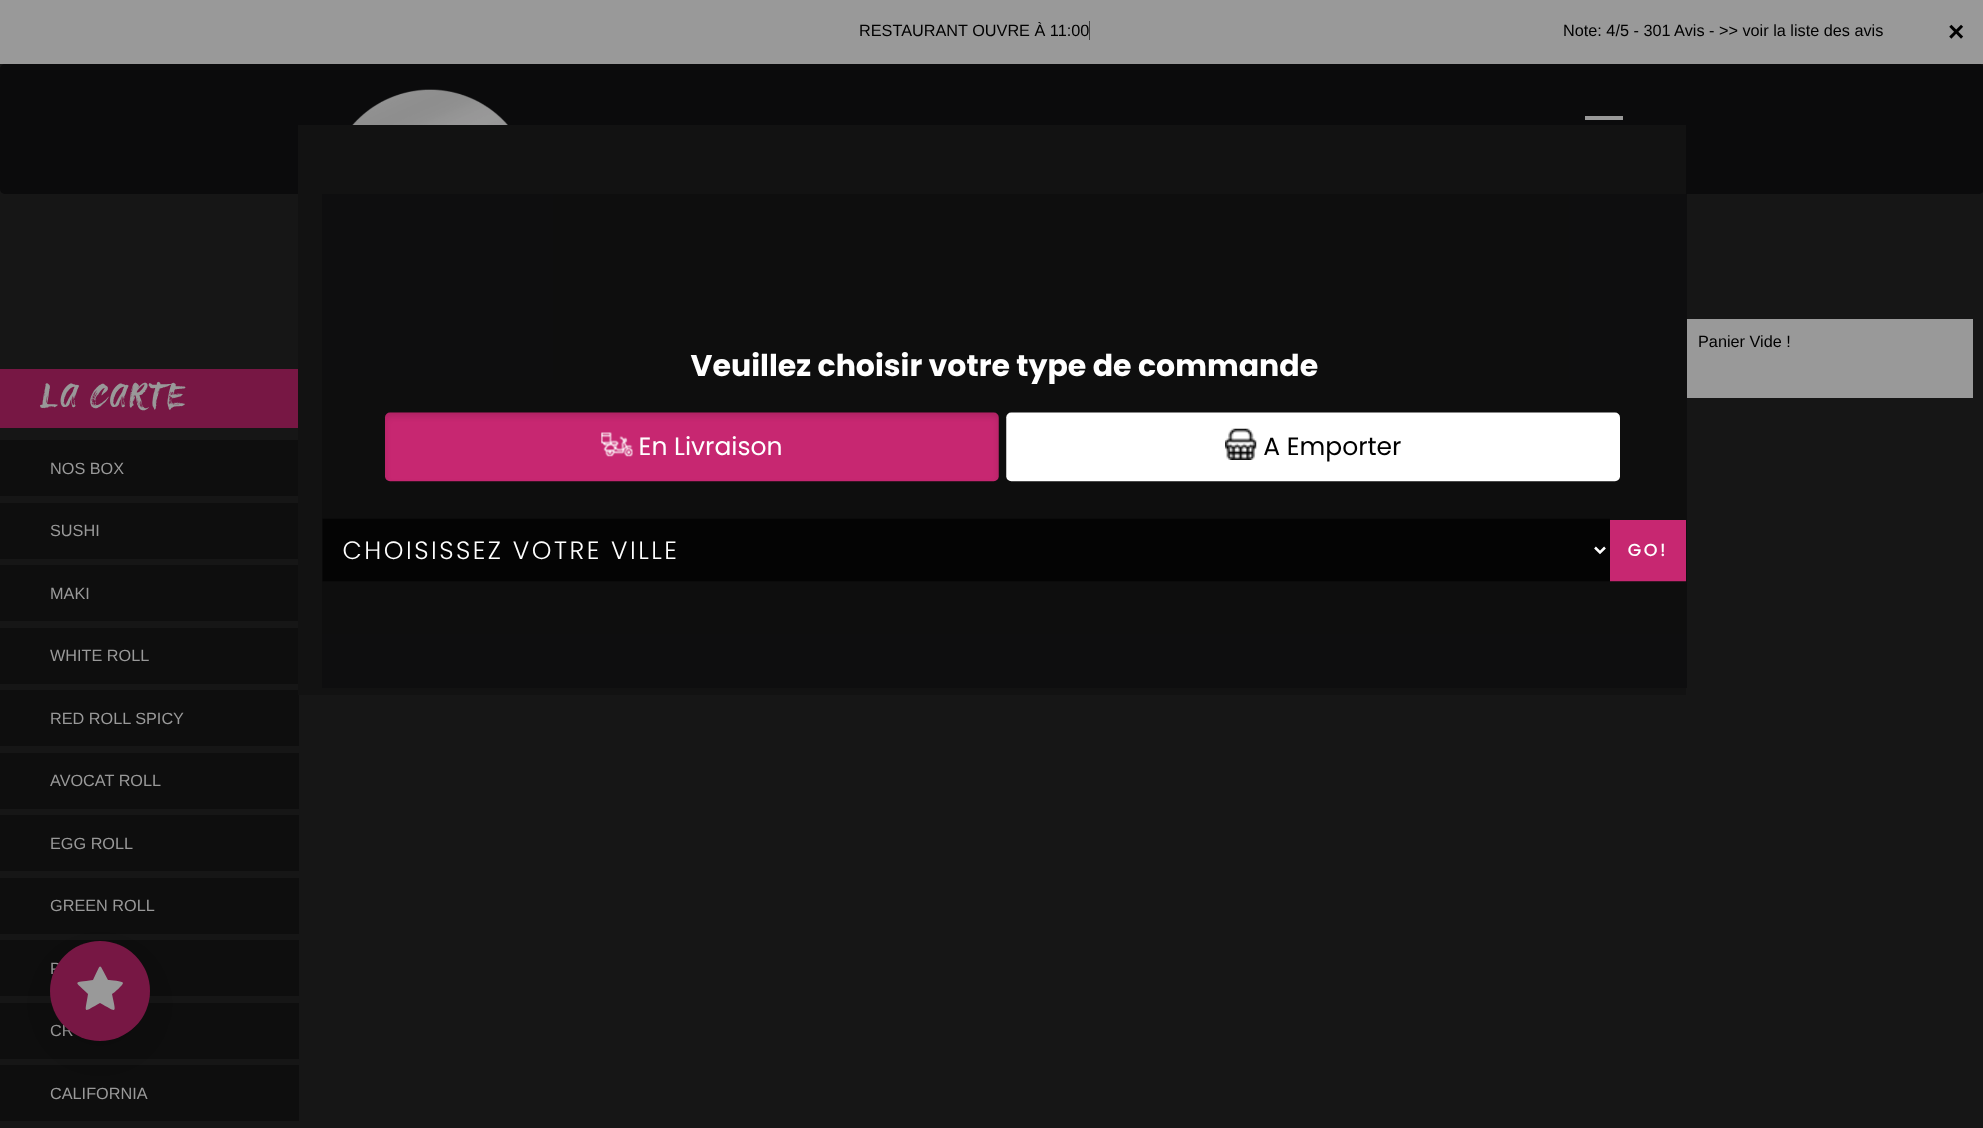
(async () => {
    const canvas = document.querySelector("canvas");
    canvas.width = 1983;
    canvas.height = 1128;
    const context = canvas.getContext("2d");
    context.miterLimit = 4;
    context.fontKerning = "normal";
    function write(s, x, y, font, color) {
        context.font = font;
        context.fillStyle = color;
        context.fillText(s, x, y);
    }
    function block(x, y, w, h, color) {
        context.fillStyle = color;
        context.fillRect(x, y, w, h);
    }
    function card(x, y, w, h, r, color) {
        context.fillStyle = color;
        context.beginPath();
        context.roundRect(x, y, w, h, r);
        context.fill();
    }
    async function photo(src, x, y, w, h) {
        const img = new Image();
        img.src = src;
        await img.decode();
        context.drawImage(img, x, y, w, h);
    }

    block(0, 0, 1983, 1128, "rgb(22, 22, 22)");
    block(0, 0, 1983, 64, "rgb(153, 153, 153)");
    write("RESTAURANT OUVRE À 11:00", 859, 36, "16.25px Liberation Sans", "rgb(0, 0, 0)");
    block(1089, 21, 1, 19, "rgb(61, 61, 61)");
    write("Note: 4/5 - 301 Avis - >> voir la liste des avis", 1563, 36, "16.25px Liberation Sans", "rgb(0, 0, 0)");
    write("×", 1948, 41, "bold 28px Liberation Sans", "rgb(0, 0, 0)");
    card(0, 64, 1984, 130, 5, "rgb(11, 11, 12)");
    block(0, 690, 299, 56, "rgb(14, 14, 14)");
    block(298, 125, 1388, 570, "rgb(18, 18, 18)");
    await photo("media/1.png", 322, 194, 1365, 494);
    await photo("media/2.png", 352, 89, 156, 36);
    block(1585, 116, 38, 4, "rgb(153, 153, 153)");
    block(1687, 319, 286, 79, "rgb(153, 153, 153)");
    write("Panier Vide !", 1698, 347, "16.25px Liberation Sans", "rgb(0, 0, 0)");
    block(0, 369, 298, 59, "rgb(119, 23, 68)");
    context.letterSpacing = "1.25px";
    write("LA CARTE", 40, 406, "31.25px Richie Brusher", "rgb(153, 153, 153)");
    block(0, 440, 298, 56, "rgb(14, 14, 14)");
    context.letterSpacing = "0px";
    write("NOS BOX", 50, 474, "16.25px Liberation Sans", "rgb(153, 153, 153)");
    block(0, 503, 298, 56, "rgb(14, 14, 14)");
    write("SUSHI", 50, 536, "16.25px Liberation Sans", "rgb(153, 153, 153)");
    block(0, 565, 298, 56, "rgb(14, 14, 14)");
    write("MAKI", 50, 599, "16.25px Liberation Sans", "rgb(153, 153, 153)");
    block(0, 628, 298, 56, "rgb(14, 14, 14)");
    write("WHITE ROLL", 50, 661, "16.25px Liberation Sans", "rgb(153, 153, 153)");
    write("RED ROLL SPICY", 50, 724, "16.25px Liberation Sans", "rgb(153, 153, 153)");
    block(0, 753, 299, 56, "rgb(14, 14, 14)");
    write("AVOCAT ROLL", 50, 786, "16.25px Liberation Sans", "rgb(153, 153, 153)");
    block(0, 815, 299, 56, "rgb(14, 14, 14)");
    write("EGG ROLL", 50, 849, "16.25px Liberation Sans", "rgb(153, 153, 153)");
    block(0, 878, 299, 56, "rgb(14, 14, 14)");
    write("GREEN ROLL", 50, 911, "16.25px Liberation Sans", "rgb(153, 153, 153)");
    block(0, 940, 299, 56, "rgb(14, 14, 14)");
    write("P", 50, 974, "16.25px Liberation Sans", "rgb(153, 153, 153)");
    block(0, 1003, 299, 56, "rgb(14, 14, 14)");
    write("CR", 50, 1036, "16.25px Liberation Sans", "rgb(153, 153, 153)");
    block(0, 1065, 299, 56, "rgb(14, 14, 14)");
    write("CALIFORNIA", 50, 1099, "16.25px Liberation Sans", "rgb(153, 153, 153)");
    context.fillStyle = "rgba(0, 0, 0, 0.1)";
    context.filter = "blur(12.5px)";
    context.beginPath();
    context.roundRect(50, 954, 100, 100, 50);
    context.fill();
    context.filter = "none";
    context.fillStyle = "rgb(119, 23, 68)";
    context.beginPath();
    context.arc(100, 991, 50, 0, Math.PI * 2);
    context.fill();
    context.fillStyle = "rgb(153, 153, 153)";
    context.beginPath();
    context.moveTo(123, 983);
    context.bezierCurveTo(123, 985, 114, 993, 112, 994);
    context.bezierCurveTo(116, 1014, 118, 1013, 100, 1003);
    context.bezierCurveTo(82, 1013, 85, 1014, 88, 994);
    context.bezierCurveTo(74, 980, 72, 983, 93, 980);
    context.bezierCurveTo(102, 962, 98, 962, 108, 980);
    context.bezierCurveTo(110, 980, 123, 981, 123, 983);
    context.closePath();
    context.fill();
})();
